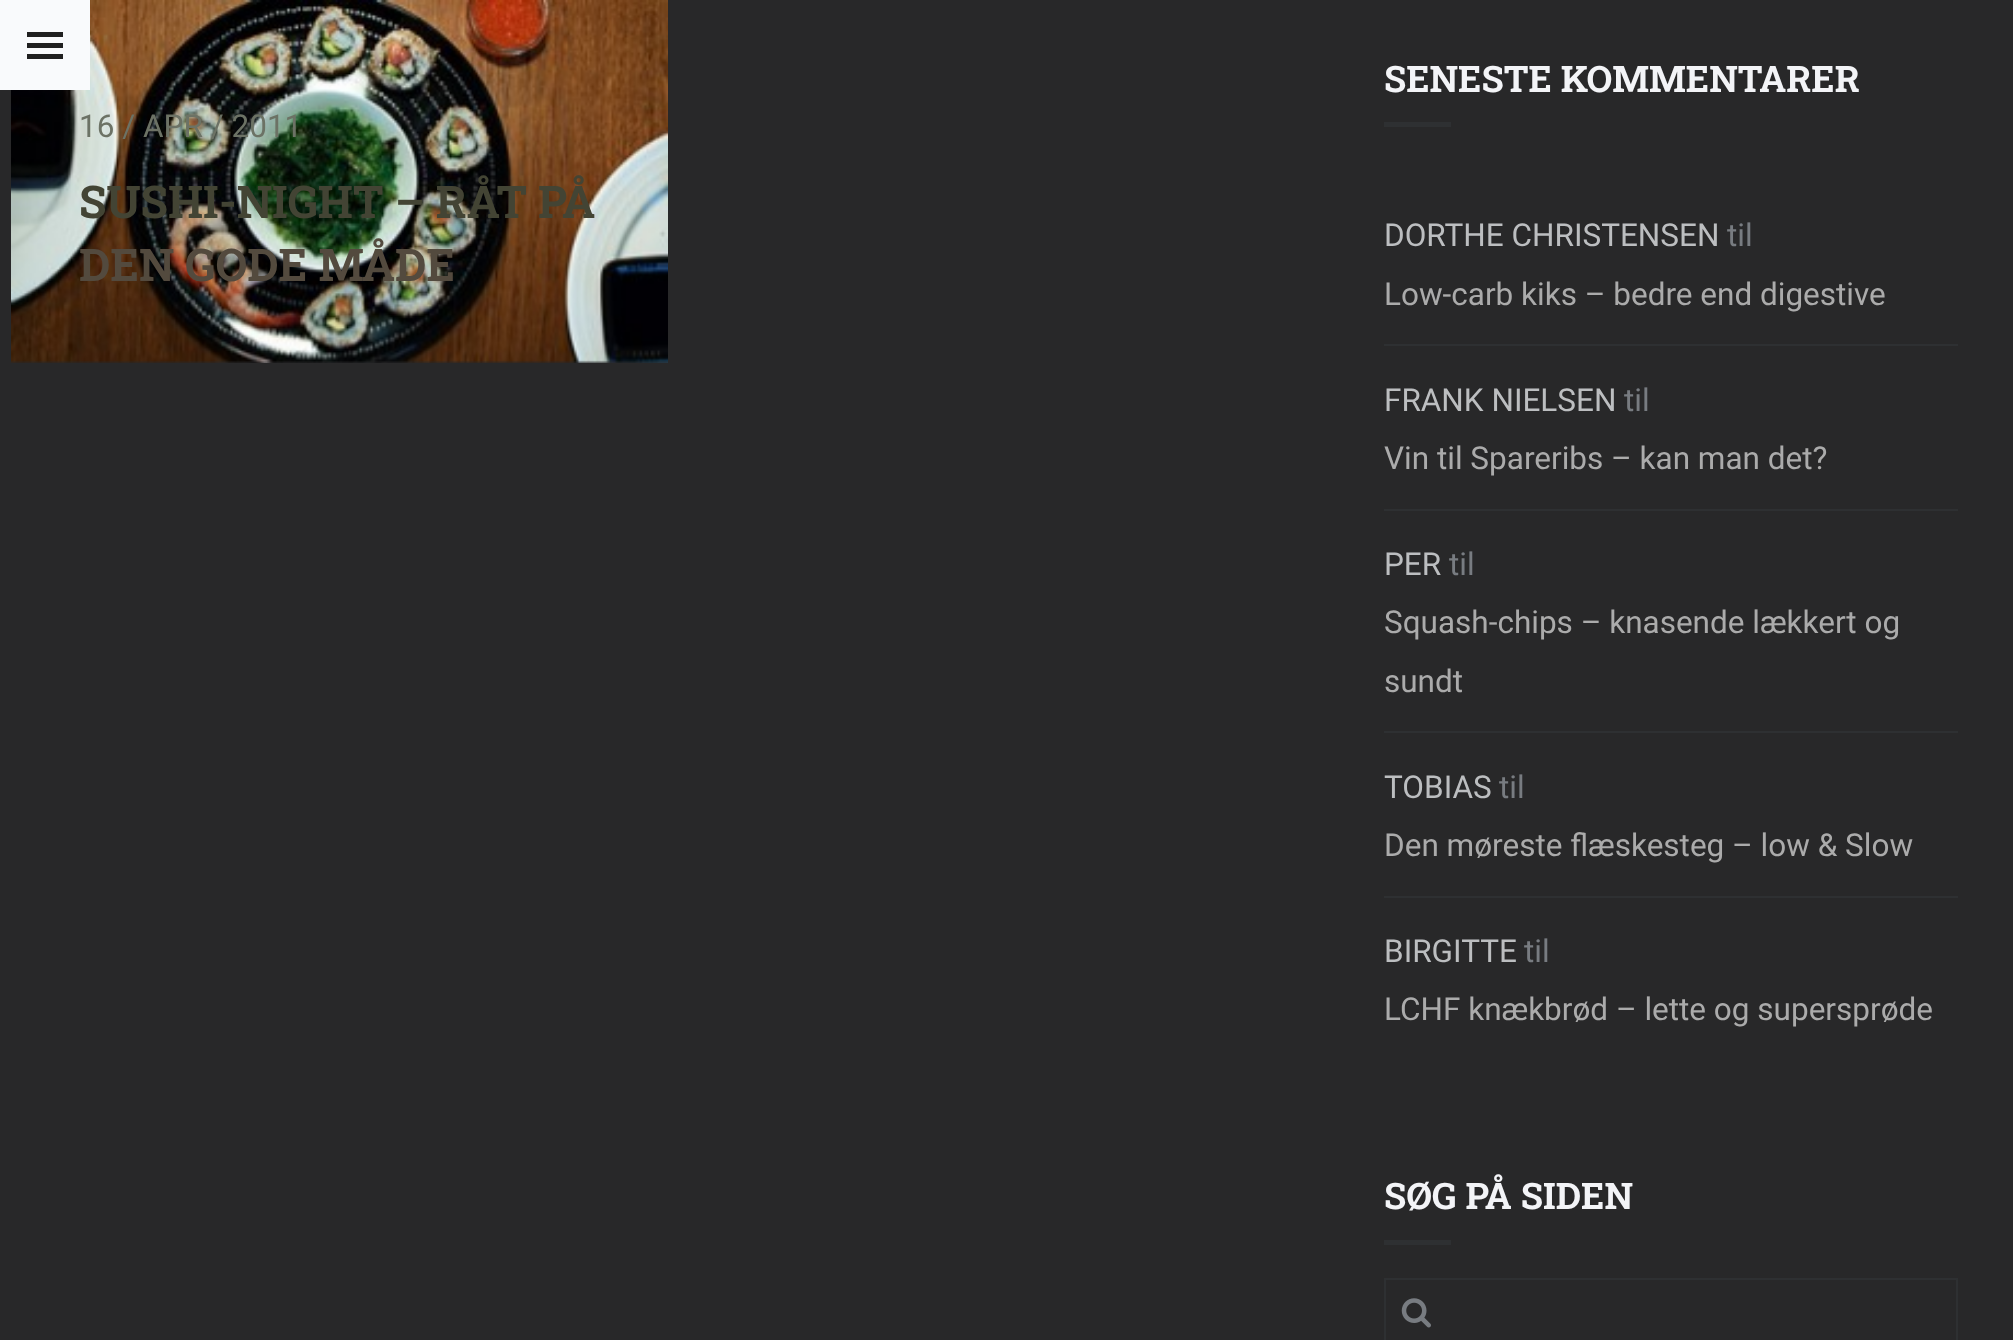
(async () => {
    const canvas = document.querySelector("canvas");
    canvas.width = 2013;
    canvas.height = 1340;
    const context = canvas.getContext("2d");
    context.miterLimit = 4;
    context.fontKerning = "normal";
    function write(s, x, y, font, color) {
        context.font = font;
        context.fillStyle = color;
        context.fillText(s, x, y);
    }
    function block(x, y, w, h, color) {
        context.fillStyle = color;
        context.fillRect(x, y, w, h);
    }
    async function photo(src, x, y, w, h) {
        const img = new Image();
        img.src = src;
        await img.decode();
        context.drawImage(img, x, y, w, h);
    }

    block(0, 0, 2013, 1340, "rgb(40, 40, 41)");
    await photo("media/1.png", 11, 0, 657, 363);
    block(0, 0, 90, 90, "rgb(249, 250, 252)");
    block(27, 32, 36, 5, "rgb(32, 32, 32)");
    block(27, 43, 36, 5, "rgb(32, 32, 32)");
    block(27, 54, 36, 5, "rgb(32, 32, 32)");
    write("16 / APR / 2011", 79, 137, "31.5px Roboto", "rgb(108, 114, 101)");
    write("SUSHI-NIGHT – RÅT PÅ", 79, 218, "bold 45px Roboto Slab", "rgb(67, 68, 52)");
    write("DEN GODE MÅDE", 79, 281, "bold 45px Roboto Slab", "rgb(83, 74, 62)");
    write("SENESTE KOMMENTARER", 1384, 92, "bold 36.5px Roboto Slab", "rgb(243, 244, 247)");
    block(1384, 122, 67, 5, "rgb(46, 48, 50)");
    write("DORTHE CHRISTENSEN", 1384, 246, "31.5px Roboto", "rgb(188, 190, 192)");
    write("til", 1727, 246, "31.5px Roboto", "rgb(120, 124, 129)");
    write("Low-carb kiks – bedre end digestive", 1384, 305, "31.5px Roboto", "rgb(171, 171, 171)");
    block(1384, 344, 574, 2, "rgb(46, 48, 50)");
    write("FRANK NIELSEN", 1384, 411, "31.5px Roboto", "rgb(188, 190, 192)");
    write("til", 1624, 411, "31.5px Roboto", "rgb(120, 124, 129)");
    write("Vin til Spareribs – kan man det?", 1384, 469, "31.5px Roboto", "rgb(171, 171, 171)");
    block(1384, 509, 574, 2, "rgb(46, 48, 50)");
    write("PER", 1384, 575, "31.5px Roboto", "rgb(188, 190, 192)");
    write("til", 1449, 575, "31.5px Roboto", "rgb(120, 124, 129)");
    write("Squash-chips – knasende lækkert og", 1384, 633, "31.5px Roboto", "rgb(171, 171, 171)");
    write("sundt", 1384, 692, "31.5px Roboto", "rgb(171, 171, 171)");
    block(1384, 731, 574, 2, "rgb(46, 48, 50)");
    write("TOBIAS", 1384, 798, "31.5px Roboto", "rgb(188, 190, 192)");
    write("til", 1499, 798, "31.5px Roboto", "rgb(120, 124, 129)");
    write("Den møreste flæskesteg – low & Slow", 1384, 856, "31.5px Roboto", "rgb(171, 171, 171)");
    block(1384, 896, 574, 2, "rgb(46, 48, 50)");
    write("BIRGITTE", 1384, 962, "31.5px Roboto", "rgb(188, 190, 192)");
    write("til", 1524, 962, "31.5px Roboto", "rgb(120, 124, 129)");
    write("LCHF knækbrød – lette og supersprøde", 1384, 1020, "31.5px Roboto", "rgb(171, 171, 171)");
    write("SØG PÅ SIDEN", 1384, 1209, "bold 36.5px Roboto Slab", "rgb(243, 244, 247)");
    block(1384, 1240, 67, 5, "rgb(46, 48, 50)");
    context.strokeStyle = "rgb(46, 48, 50)";
    context.lineWidth = 2;
    context.strokeRect(1385, 1279, 572, 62);
    await photo("media/2.png", 1401, 1298, 30, 30);
})();
